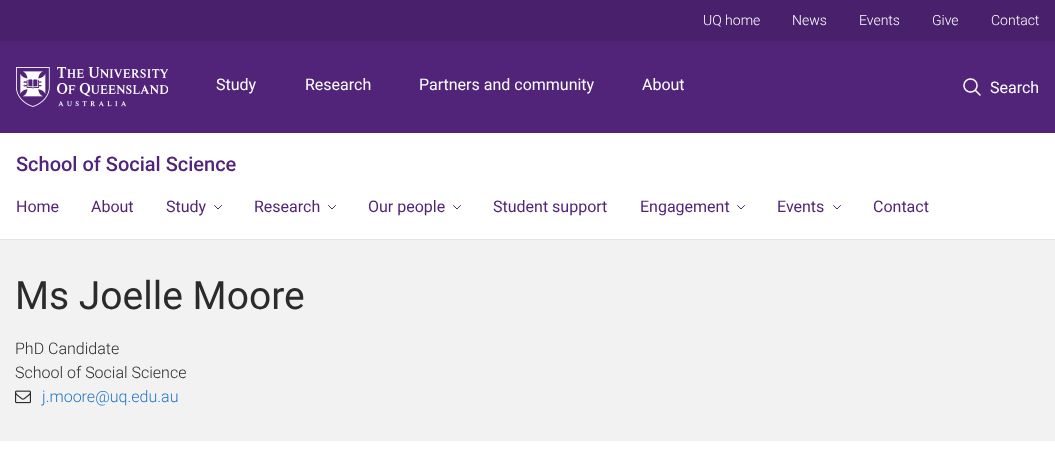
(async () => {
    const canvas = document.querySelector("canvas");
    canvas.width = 1055;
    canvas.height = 454;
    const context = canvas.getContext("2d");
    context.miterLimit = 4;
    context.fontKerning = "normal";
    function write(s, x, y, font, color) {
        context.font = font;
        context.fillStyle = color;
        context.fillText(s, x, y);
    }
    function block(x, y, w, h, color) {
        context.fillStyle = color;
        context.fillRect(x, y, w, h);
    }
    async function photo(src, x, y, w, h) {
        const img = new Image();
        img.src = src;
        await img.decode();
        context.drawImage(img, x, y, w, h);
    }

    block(0, 0, 1055, 454, "rgb(255, 255, 255)");
    block(0, 41, 1055, 92, "rgb(81, 36, 122)");
    block(0, 0, 1055, 41, "rgb(72, 32, 108)");
    write("UQ home", 703, 25, "300 14px Roboto", "rgb(255, 255, 255)");
    write("News", 792, 25, "300 14px Roboto", "rgb(255, 255, 255)");
    write("Events", 859, 25, "300 14px Roboto", "rgb(255, 255, 255)");
    write("Give", 932, 25, "300 14px Roboto", "rgb(255, 255, 255)");
    write("Contact", 991, 25, "300 14px Roboto", "rgb(255, 255, 255)");
    await photo("media/1.png", 16, 67, 152, 40);
    write("Study", 216, 90, "16px Roboto", "rgb(255, 255, 255)");
    write("Research", 305, 90, "16px Roboto", "rgb(255, 255, 255)");
    write("Partners and community", 419, 90, "16px Roboto", "rgb(255, 255, 255)");
    write("About", 642, 90, "16px Roboto", "rgb(255, 255, 255)");
    await photo("media/2.png", 963, 78, 18, 18);
    write("Search", 990, 93, "16px Roboto", "rgb(255, 255, 255)");
    block(0, 239, 1055, 1, "rgb(226, 226, 226)");
    write("School of Social Science", 16, 171, "500 20px Roboto", "rgb(81, 36, 122)");
    write("Home", 16, 212, "16px Roboto", "rgb(81, 36, 122)");
    write("About", 91, 212, "16px Roboto", "rgb(81, 36, 122)");
    write("Study", 166, 212, "16px Roboto", "rgb(81, 36, 122)");
    context.beginPath();
    context.moveTo(214.5, 205.5);
    context.lineTo(218, 209);
    context.lineTo(221.5, 205.5);
    context.strokeStyle = "rgb(81, 36, 122)";
    context.lineCap = "round";
    context.lineJoin = "round";
    context.stroke();
    write("Research", 254, 212, "16px Roboto", "rgb(81, 36, 122)");
    context.beginPath();
    context.moveTo(328.5, 205.5);
    context.lineTo(332, 209);
    context.lineTo(335.5, 205.5);
    context.stroke();
    write("Our people", 368, 212, "16px Roboto", "rgb(81, 36, 122)");
    context.beginPath();
    context.moveTo(453.5, 205.5);
    context.lineTo(457, 209);
    context.lineTo(460.5, 205.5);
    context.stroke();
    write("Student support", 493, 212, "16px Roboto", "rgb(81, 36, 122)");
    write("Engagement", 640, 212, "16px Roboto", "rgb(81, 36, 122)");
    context.beginPath();
    context.moveTo(737.5, 205.5);
    context.lineTo(741, 209);
    context.lineTo(744.5, 205.5);
    context.stroke();
    write("Events", 777, 212, "16px Roboto", "rgb(81, 36, 122)");
    context.beginPath();
    context.moveTo(833.5, 205.5);
    context.lineTo(837, 209);
    context.lineTo(840.5, 205.5);
    context.stroke();
    write("Contact", 873, 212, "16px Roboto", "rgb(81, 36, 122)");
    block(0, 240, 1055, 201, "rgb(242, 242, 242)");
    write("Ms Joelle Moore", 15, 309, "39px Roboto", "rgb(43, 43, 43)");
    write("PhD Candidate", 15, 354, "300 16px Roboto", "rgb(43, 43, 43)");
    write("School of Social Science", 15, 378, "300 16px Roboto", "rgb(43, 43, 43)");
    await photo("media/3.png", 15, 390, 16, 14);
    write("j.moore@uq.edu.au", 42, 402, "300 16px Roboto", "rgb(35, 119, 203)");
})();
